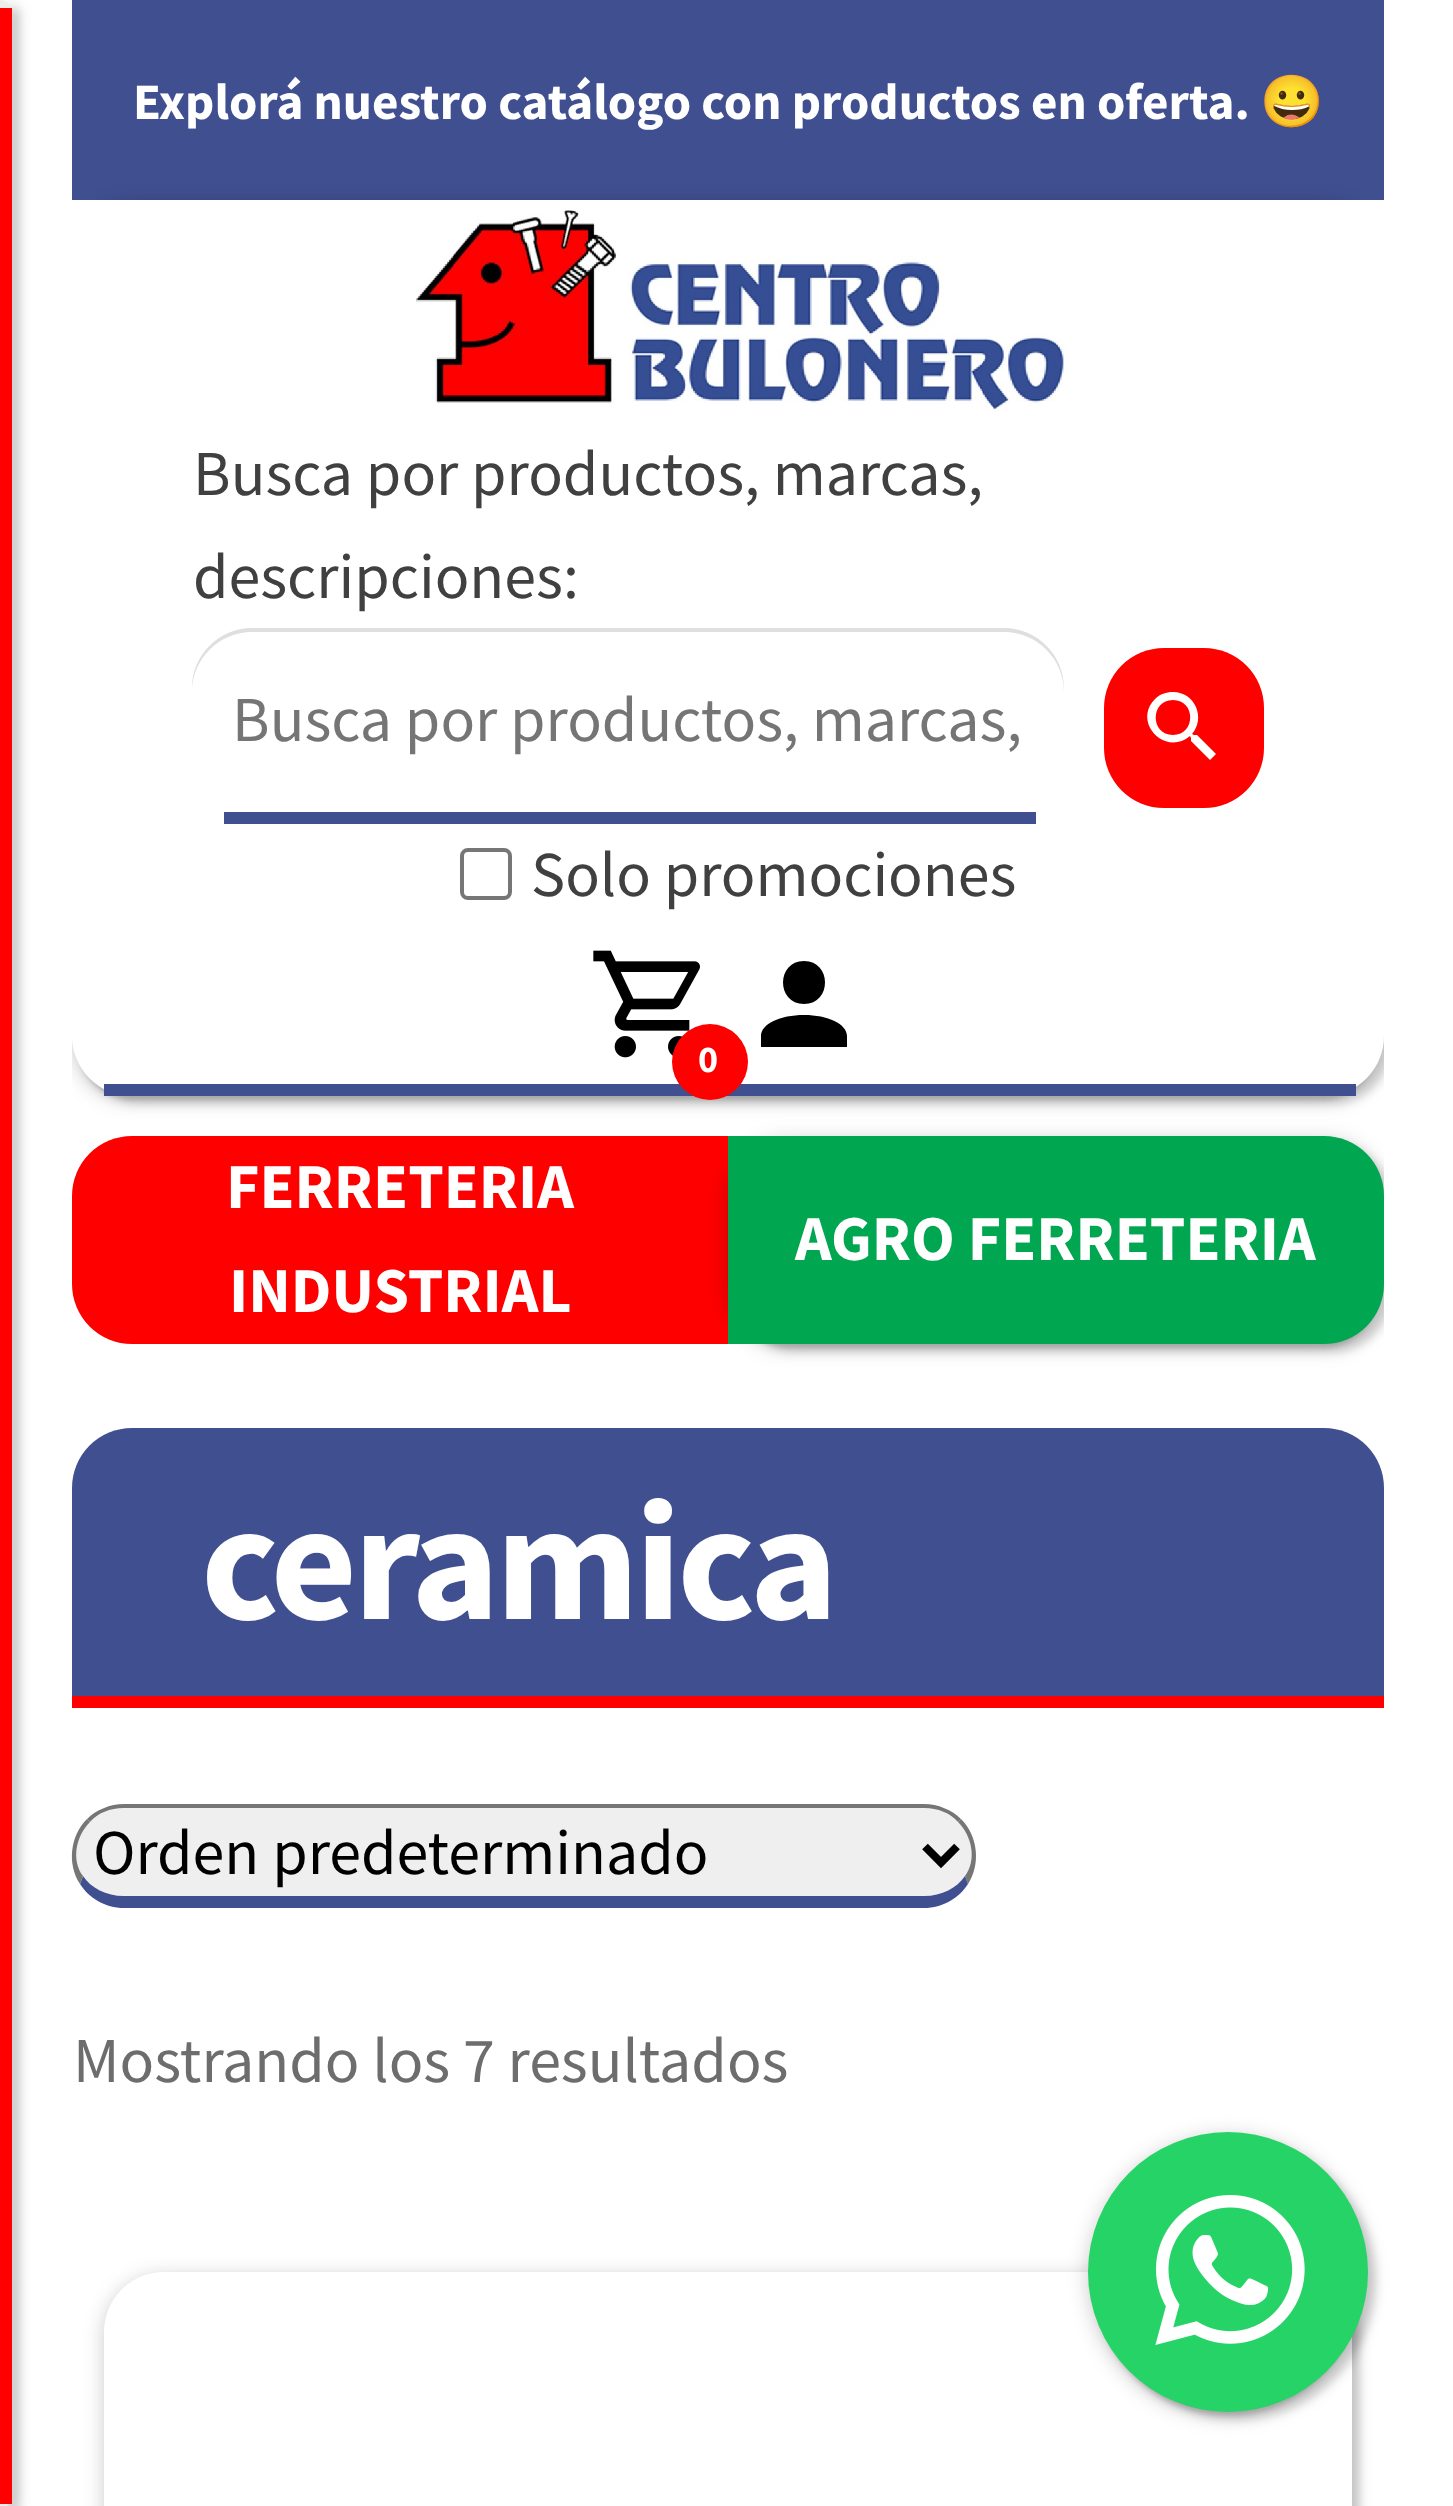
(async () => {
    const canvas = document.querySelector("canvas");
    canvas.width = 1453;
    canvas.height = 2506;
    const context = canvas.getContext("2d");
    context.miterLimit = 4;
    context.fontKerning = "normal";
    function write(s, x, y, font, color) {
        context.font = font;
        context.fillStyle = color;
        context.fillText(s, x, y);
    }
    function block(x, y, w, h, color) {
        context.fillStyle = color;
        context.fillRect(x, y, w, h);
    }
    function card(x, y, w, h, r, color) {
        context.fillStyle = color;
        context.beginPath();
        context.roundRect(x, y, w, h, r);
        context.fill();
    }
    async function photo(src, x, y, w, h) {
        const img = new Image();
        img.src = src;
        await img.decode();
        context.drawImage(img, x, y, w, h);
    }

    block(0, 0, 1453, 2506, "rgb(255, 255, 255)");
    context.fillStyle = "rgba(0, 0, 0, 0.2)";
    context.filter = "blur(10px)";
    context.beginPath();
    context.roundRect(0, 4, 12, 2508, 12);
    context.fill();
    context.filter = "none";
    context.fillStyle = "rgba(0, 0, 0, 0.14)";
    context.filter = "blur(4px)";
    context.beginPath();
    context.roundRect(8, 8, 12, 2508, 12);
    context.fill();
    context.filter = "none";
    context.fillStyle = "rgb(237, 237, 237)";
    context.beginPath();
    context.moveTo(0, 0);
    context.bezierCurveTo(6.5, 0, 12, 5.5, 12, 12);
    context.lineTo(12, 2496);
    context.bezierCurveTo(12, 2502.5, 6.5, 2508, 0, 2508);
    context.closePath();
    context.fill();
    block(0, 8, 12, 2496, "rgb(254, 0, 0)");
    block(72, 0, 1312, 200, "rgb(64, 79, 144)");
    write("Explorá nuestro catálogo con productos en oferta.", 133, 119, "bold 51.2px Source Sans Pro", "rgb(255, 255, 255)");
    write("😀", 1260, 119, "bold 51.2px Noto Color Emoji", "rgb(255, 255, 255)");
    context.save();
    context.beginPath();
    context.rect(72, 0, 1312, 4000);
    context.clip();
    context.fillStyle = "rgba(0, 0, 0, 0.2)";
    context.filter = "blur(10px)";
    context.beginPath();
    context.roundRect(72, 204, 1312, 896, 60);
    context.fill();
    context.filter = "none";
    context.restore();
    context.fillStyle = "rgba(0, 0, 0, 0.12)";
    context.filter = "blur(2px)";
    context.beginPath();
    context.roundRect(80, 220, 1296, 880, 52);
    context.fill();
    context.filter = "none";
    context.save();
    context.beginPath();
    context.rect(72, 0, 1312, 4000);
    context.clip();
    context.fillStyle = "rgba(0, 0, 0, 0.14)";
    context.filter = "blur(4px)";
    context.beginPath();
    context.roundRect(80, 208, 1312, 896, 60);
    context.fill();
    context.filter = "none";
    context.restore();
    context.fillStyle = "rgb(255, 255, 255)";
    context.beginPath();
    context.roundRect(72, 200, 1312, 896, [0, 0, 60, 60]);
    context.fill();
    block(104, 1084, 1252, 12, "rgb(64, 79, 144)");
    await photo("media/1.png", 416, 210, 653, 202);
    write("Busca por productos, marcas,", 193, 495, "64px Source Sans Pro", "rgb(64, 64, 64)");
    write("descripciones:", 193, 598, "64px Source Sans Pro", "rgb(64, 64, 64)");
    context.fillStyle = "rgb(223, 223, 223)";
    context.beginPath();
    context.moveTo(252, 632);
    context.lineTo(1004, 632);
    context.bezierCurveTo(1037, 632, 1064, 659, 1064, 692);
    context.lineTo(1064, 688);
    context.bezierCurveTo(1064, 655, 1037, 628, 1004, 628);
    context.lineTo(252, 628);
    context.bezierCurveTo(219, 628, 192, 655, 192, 688);
    context.lineTo(192, 692);
    context.bezierCurveTo(192, 659, 219, 632, 252, 632);
    context.closePath();
    context.fill();
    block(224, 812, 812, 12, "rgb(64, 79, 144)");
    write("Busca por productos, marcas,", 232, 741, "64px Source Sans Pro", "rgb(117, 117, 117)");
    card(1104, 648, 160, 160, 60, "rgb(254, 0, 0)");
    context.fillStyle = "rgb(255, 255, 255)";
    context.beginPath();
    context.moveTo(1173, 692);
    context.bezierCurveTo(1195, 692, 1206, 718, 1192, 734);
    context.lineTo(1194, 735);
    context.lineTo(1197, 735);
    context.lineTo(1216, 754);
    context.lineTo(1210, 760);
    context.lineTo(1191, 741);
    context.lineTo(1191, 738);
    context.lineTo(1190, 736);
    context.bezierCurveTo(1165, 757, 1132, 722, 1155, 699);
    context.bezierCurveTo(1160, 694, 1166, 692, 1173, 692);
    context.moveTo(1173, 700);
    context.bezierCurveTo(1150, 700, 1150, 735, 1173, 735);
    context.bezierCurveTo(1196, 735, 1196, 700, 1173, 700);
    context.closePath();
    context.fill();
    context.beginPath();
    context.roundRect(462, 850, 48, 48, 6);
    context.strokeStyle = "rgb(118, 118, 118)";
    context.lineWidth = 4;
    context.stroke();
    write("Solo promociones", 531, 896, "64px Source Sans Pro", "rgb(64, 64, 64)");
    context.fillStyle = "rgb(0, 0, 0)";
    context.beginPath();
    context.moveTo(804, 961);
    context.bezierCurveTo(832, 961, 832, 1004, 804, 1004);
    context.bezierCurveTo(776, 1004, 776, 961, 804, 961);
    context.moveTo(804, 1015);
    context.bezierCurveTo(828, 1015, 847, 1024, 847, 1036);
    context.lineTo(847, 1047);
    context.lineTo(761, 1047);
    context.lineTo(761, 1036);
    context.bezierCurveTo(761, 1024, 780, 1015, 804, 1015);
    context.closePath();
    context.fill();
    await photo("media/2.png", 593, 950, 107, 108);
    context.fillStyle = "rgb(254, 0, 0)";
    context.beginPath();
    context.arc(710, 1062, 38, 0, Math.PI * 2);
    context.fill();
    write("0", 698, 1072, "bold 38px Source Sans Pro", "rgb(255, 255, 255)");
    context.fillStyle = "rgb(254, 0, 0)";
    context.beginPath();
    context.roundRect(72, 1136, 656, 208, [60, 0, 0, 60]);
    context.fill();
    write("FERRETERIA", 226, 1208, "bold 64px Source Sans Pro", "rgb(255, 255, 255)");
    write("INDUSTRIAL", 229, 1312, "bold 64px Source Sans Pro", "rgb(255, 255, 255)");
    context.save();
    context.beginPath();
    context.rect(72, 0, 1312, 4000);
    context.clip();
    context.fillStyle = "rgba(0, 0, 0, 0.2)";
    context.filter = "blur(10px)";
    context.beginPath();
    context.roundRect(728, 1140, 656, 208, 60);
    context.fill();
    context.filter = "none";
    context.restore();
    context.fillStyle = "rgba(0, 0, 0, 0.12)";
    context.filter = "blur(2px)";
    context.beginPath();
    context.roundRect(736, 1156, 640, 192, 52);
    context.fill();
    context.filter = "none";
    context.save();
    context.beginPath();
    context.rect(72, 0, 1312, 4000);
    context.clip();
    context.fillStyle = "rgba(0, 0, 0, 0.14)";
    context.filter = "blur(4px)";
    context.beginPath();
    context.roundRect(736, 1144, 656, 208, 60);
    context.fill();
    context.filter = "none";
    context.restore();
    context.fillStyle = "rgb(0, 166, 80)";
    context.beginPath();
    context.roundRect(728, 1136, 656, 208, [0, 60, 60, 0]);
    context.fill();
    write("AGRO FERRETERIA", 795, 1260, "bold 64px Source Sans Pro", "rgb(255, 255, 255)");
    context.fillStyle = "rgb(64, 79, 144)";
    context.beginPath();
    context.roundRect(72, 1428, 1312, 280, [60, 60, 0, 0]);
    context.fill();
    block(72, 1696, 1312, 12, "rgb(254, 0, 0)");
    context.letterSpacing = "-4px";
    write("ceramica", 201, 1619, "bold 167.5px Source Sans Pro", "rgb(255, 255, 255)");
    context.fillStyle = "rgb(239, 239, 239)";
    context.beginPath();
    context.moveTo(124, 1808);
    context.lineTo(924, 1808);
    context.bezierCurveTo(951, 1808, 972, 1829, 972, 1856);
    context.bezierCurveTo(972, 1878, 951, 1896, 924, 1896);
    context.lineTo(124, 1896);
    context.bezierCurveTo(97, 1896, 76, 1878, 76, 1856);
    context.bezierCurveTo(76, 1829, 97, 1808, 124, 1808);
    context.closePath();
    context.fill();
    context.fillStyle = "rgb(118, 118, 118)";
    context.beginPath();
    context.moveTo(124, 1804);
    context.bezierCurveTo(110, 1804, 96, 1810, 87, 1819);
    context.lineTo(90, 1822);
    context.bezierCurveTo(98, 1813, 110, 1808, 124, 1808);
    context.lineTo(924, 1808);
    context.bezierCurveTo(938, 1808, 950, 1813, 958, 1822);
    context.lineTo(961, 1819);
    context.bezierCurveTo(952, 1810, 938, 1804, 924, 1804);
    context.closePath();
    context.fill();
    context.beginPath();
    context.moveTo(961, 1819);
    context.bezierCurveTo(978, 1836, 981, 1864, 968, 1884);
    context.lineTo(965, 1876);
    context.bezierCurveTo(977, 1860, 972, 1836, 958, 1822);
    context.closePath();
    context.fill();
    context.fillStyle = "rgb(64, 79, 144)";
    context.beginPath();
    context.moveTo(124, 1908);
    context.lineTo(924, 1908);
    context.bezierCurveTo(943, 1908, 959, 1898, 968, 1884);
    context.lineTo(965, 1876);
    context.bezierCurveTo(957, 1888, 942, 1896, 924, 1896);
    context.lineTo(124, 1896);
    context.bezierCurveTo(106, 1896, 91, 1888, 83, 1876);
    context.lineTo(80, 1884);
    context.bezierCurveTo(89, 1898, 105, 1908, 124, 1908);
    context.closePath();
    context.fill();
    context.fillStyle = "rgb(118, 118, 118)";
    context.beginPath();
    context.moveTo(80, 1884);
    context.bezierCurveTo(67, 1864, 70, 1836, 87, 1819);
    context.lineTo(90, 1822);
    context.bezierCurveTo(76, 1836, 71, 1860, 83, 1876);
    context.closePath();
    context.fill();
    context.beginPath();
    context.moveTo(925, 1846.5);
    context.lineTo(941, 1862.5);
    context.lineTo(957, 1846.5);
    context.strokeStyle = "rgb(0, 0, 0)";
    context.lineWidth = 8;
    context.stroke();
    context.letterSpacing = "0px";
    write("Orden predeterminado", 93, 1874, "64px Source Sans Pro", "rgb(0, 0, 0)");
    write("Mostrando los 7 resultados", 73, 2082, "64px Source Sans Pro", "rgb(109, 109, 109)");
    context.fillStyle = "rgba(0, 0, 0, 0.2)";
    context.filter = "blur(10px)";
    context.beginPath();
    context.roundRect(104, 2276, 1248, 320, 60);
    context.fill();
    context.filter = "none";
    context.fillStyle = "rgba(0, 0, 0, 0.14)";
    context.filter = "blur(4px)";
    context.beginPath();
    context.roundRect(112, 2280, 1248, 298, 60);
    context.fill();
    context.filter = "none";
    card(104, 2272, 1248, 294, 60, "rgb(255, 255, 255)");
    context.fillStyle = "rgba(0, 0, 0, 0.2)";
    context.filter = "blur(10px)";
    context.beginPath();
    context.roundRect(1088, 2136, 280, 280, 140);
    context.fill();
    context.filter = "none";
    context.fillStyle = "rgba(0, 0, 0, 0.12)";
    context.filter = "blur(2px)";
    context.beginPath();
    context.roundRect(1096, 2152, 264, 264, 132);
    context.fill();
    context.filter = "none";
    context.fillStyle = "rgba(0, 0, 0, 0.14)";
    context.filter = "blur(4px)";
    context.beginPath();
    context.roundRect(1096, 2140, 280, 280, 140);
    context.fill();
    context.filter = "none";
    context.fillStyle = "rgb(37, 211, 102)";
    context.beginPath();
    context.arc(1228, 2272, 140, 0, Math.PI * 2);
    context.fill();
    await photo("media/3.png", 1155, 2195, 150, 150);
})();
